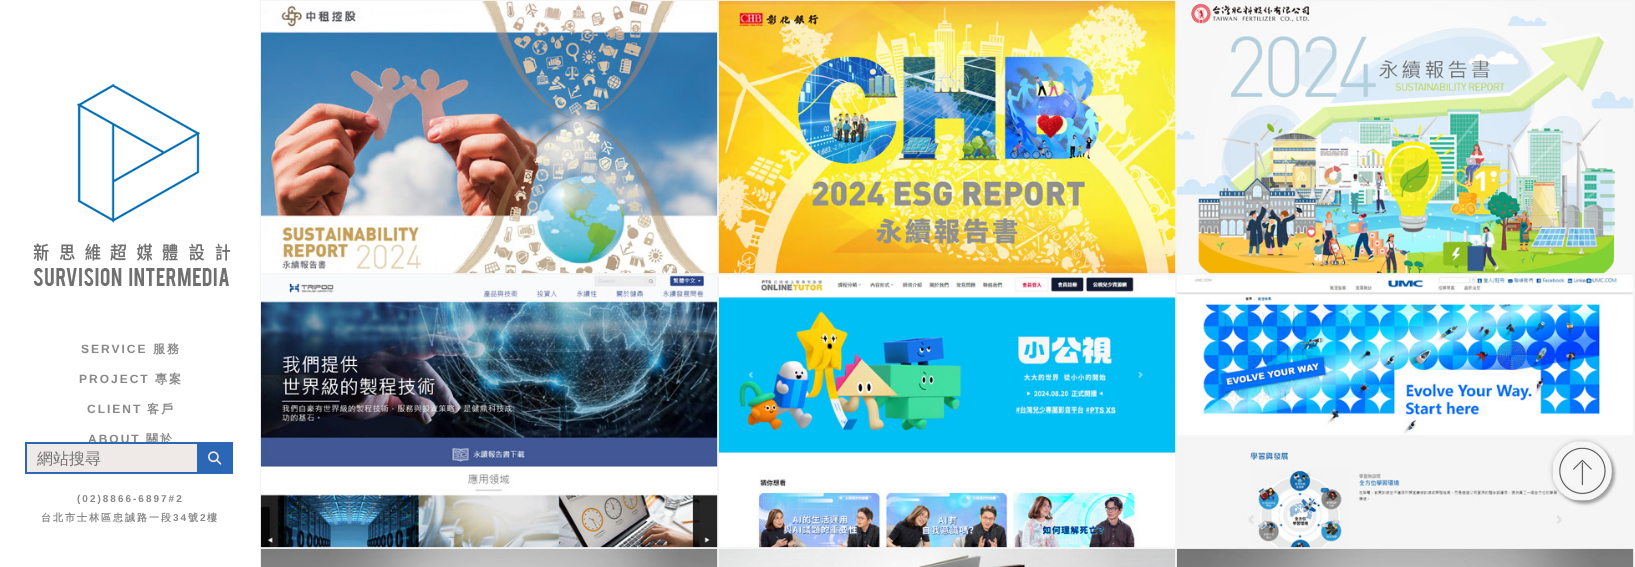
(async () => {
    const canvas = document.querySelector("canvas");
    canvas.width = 1635;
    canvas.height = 567;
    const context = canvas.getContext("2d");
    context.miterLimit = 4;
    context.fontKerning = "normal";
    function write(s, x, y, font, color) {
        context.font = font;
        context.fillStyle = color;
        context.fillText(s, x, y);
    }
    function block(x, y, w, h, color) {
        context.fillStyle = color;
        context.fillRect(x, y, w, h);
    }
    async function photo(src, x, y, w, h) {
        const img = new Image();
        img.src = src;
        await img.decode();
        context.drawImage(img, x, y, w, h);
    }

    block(0, 0, 1635, 567, "rgb(245, 245, 245)");
    block(0, 0, 260, 567, "rgb(255, 255, 255)");
    await photo("media/1.png", 33, 84, 198, 202);
    context.letterSpacing = "2px";
    write("SERVICE", 81, 353, "bold 12px Liberation Sans", "rgb(136, 136, 136)");
    write("服務", 153, 353, "bold 12px WenQuanYi Zen Hei", "rgb(136, 136, 136)");
    write("PROJECT", 79, 383, "bold 12px Liberation Sans", "rgb(136, 136, 136)");
    write("專案", 155, 383, "bold 12px WenQuanYi Zen Hei", "rgb(136, 136, 136)");
    write("CLIENT", 87, 413, "bold 12px Liberation Sans", "rgb(136, 136, 136)");
    write("客戶", 147, 413, "bold 12px WenQuanYi Zen Hei", "rgb(136, 136, 136)");
    write("ABOUT", 88, 443, "bold 12px Liberation Sans", "rgb(136, 136, 136)");
    write("關於", 146, 443, "bold 12px WenQuanYi Zen Hei", "rgb(136, 136, 136)");
    block(27, 444, 170, 28, "rgb(239, 233, 231)");
    context.strokeStyle = "rgb(44, 103, 181)";
    context.lineWidth = 2;
    context.strokeRect(26, 443, 206, 30);
    context.letterSpacing = "0px";
    write("網站搜尋", 37, 464, "500 16px WenQuanYi Zen Hei", "rgb(117, 117, 117)");
    block(197, 444, 34, 28, "rgb(44, 103, 181)");
    await photo("media/2.png", 208, 451, 14, 14);
    context.letterSpacing = "2px";
    write("(02)8866-6897#2", 77, 502, "bold 10px Liberation Sans", "rgb(136, 136, 136)");
    write("台北市士林區忠誠路一段", 41, 521, "bold 10px WenQuanYi Zen Hei", "rgb(136, 136, 136)");
    write("34", 173, 521, "bold 10px Liberation Sans", "rgb(136, 136, 136)");
    write("號", 188, 521, "bold 10px WenQuanYi Zen Hei", "rgb(136, 136, 136)");
    write("2", 200, 521, "bold 10px Liberation Sans", "rgb(136, 136, 136)");
    write("樓", 207, 521, "bold 10px WenQuanYi Zen Hei", "rgb(136, 136, 136)");
    await photo("media/3.png", 260, 0, 458, 274);
    await photo("media/4.png", 718, 0, 458, 274);
    await photo("media/5.png", 1176, 0, 458, 274);
    await photo("media/6.png", 260, 275, 458, 273);
    await photo("media/7.png", 718, 275, 458, 273);
    await photo("media/8.png", 1177, 274, 456, 274);
    await photo("media/9.png", 260, 548, 458, 19);
    await photo("media/10.png", 719, 549, 457, 18);
    await photo("media/11.png", 1176, 548, 458, 19);
    context.fillStyle = "rgba(0, 0, 0, 0.2)";
    context.filter = "blur(2.5px)";
    context.beginPath();
    context.roundRect(1552, 441, 60, 60, 30);
    context.fill();
    context.filter = "none";
    context.fillStyle = "rgba(0, 0, 0, 0.3)";
    context.filter = "blur(1.5px)";
    context.beginPath();
    context.roundRect(1555, 444, 60, 60, 30);
    context.fill();
    context.filter = "none";
    await photo("media/12.png", 1553, 441, 59, 60);
})();
